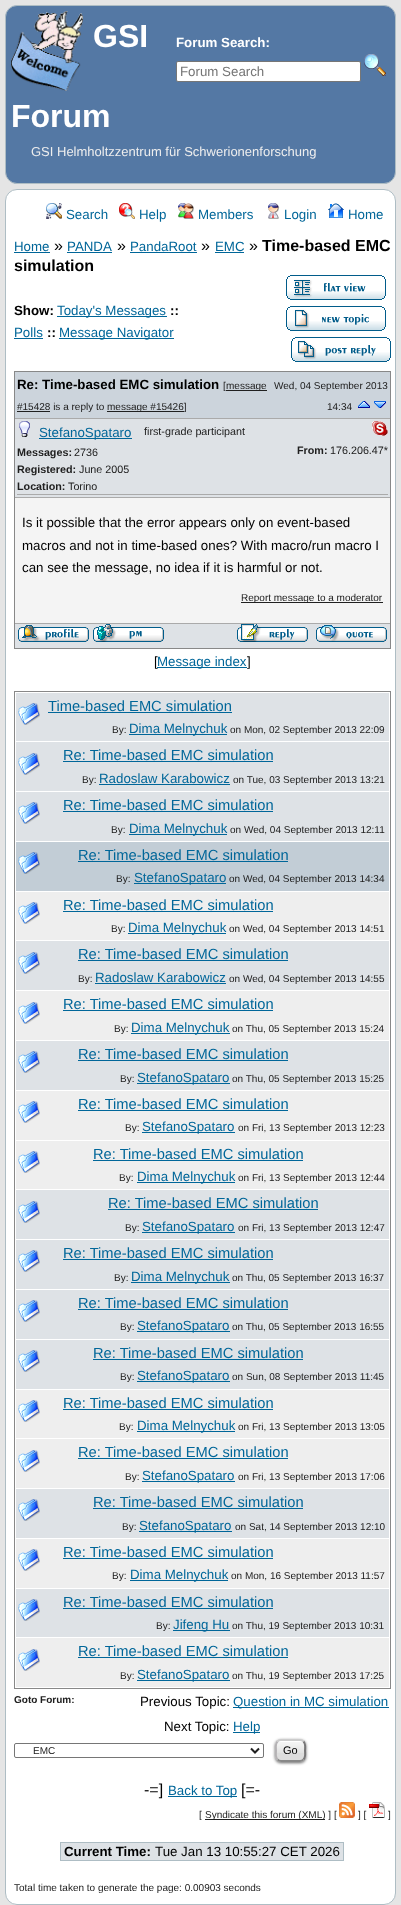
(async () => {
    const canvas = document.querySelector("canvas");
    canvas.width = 401;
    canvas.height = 1905;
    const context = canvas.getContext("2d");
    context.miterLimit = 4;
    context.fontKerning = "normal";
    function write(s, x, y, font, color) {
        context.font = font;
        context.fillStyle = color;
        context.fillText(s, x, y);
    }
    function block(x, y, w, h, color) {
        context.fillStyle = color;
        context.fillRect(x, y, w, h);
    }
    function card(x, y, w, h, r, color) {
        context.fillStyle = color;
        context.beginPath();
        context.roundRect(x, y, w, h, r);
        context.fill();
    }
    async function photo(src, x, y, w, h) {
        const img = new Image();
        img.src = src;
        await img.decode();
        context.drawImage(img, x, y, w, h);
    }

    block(0, 0, 401, 1905, "rgb(229, 229, 229)");
    context.fillStyle = "rgb(84, 120, 164)";
    context.beginPath();
    context.roundRect(5.5, 5.5, 390, 178, 11.5);
    context.fill();
    context.strokeStyle = "rgb(174, 189, 196)";
    context.stroke();
    await photo("media/1.png", 11, 11, 72, 80);
    write("GSI", 93, 47, "bold 32px Liberation Sans", "rgb(255, 255, 255)");
    write("Forum", 11, 127, "bold 32px Liberation Sans", "rgb(255, 255, 255)");
    write("Forum Search:", 176, 47, "bold 13.3px Liberation Sans", "rgb(255, 255, 255)");
    context.beginPath();
    context.roundRect(176.5, 61.5, 184, 20, 1.5);
    context.fill();
    context.strokeStyle = "rgb(118, 118, 118)";
    context.stroke();
    write("Forum Search", 180, 76, "13.3px Liberation Sans", "rgb(117, 117, 117)");
    await photo("media/2.png", 364, 54, 22, 22);
    write("GSI Helmholtzzentrum für Schwerionenforschung", 31, 156, "13px Liberation Sans", "rgb(238, 238, 238)");
    context.fillStyle = "rgb(255, 255, 255)";
    context.beginPath();
    context.roundRect(5.5, 189.5, 390, 1715, 11.5);
    context.fill();
    context.strokeStyle = "rgb(174, 189, 196)";
    context.stroke();
    await photo("media/3.png", 46, 203, 16, 16);
    write("Search", 66, 219, "13.3px Liberation Sans", "rgb(0, 102, 153)");
    await photo("media/4.png", 119, 203, 16, 16);
    write("Help", 139, 219, "13.3px Liberation Sans", "rgb(0, 102, 153)");
    await photo("media/5.png", 178, 203, 16, 16);
    write("Members", 198, 219, "13.3px Liberation Sans", "rgb(0, 102, 153)");
    await photo("media/6.png", 268, 203, 12, 16);
    write("Login", 284, 219, "13.3px Liberation Sans", "rgb(0, 102, 153)");
    await photo("media/7.png", 328, 203, 16, 15);
    write("Home", 348, 219, "13.3px Liberation Sans", "rgb(0, 102, 153)");
    write("Home", 14, 251, "13.3px Liberation Sans", "rgb(0, 102, 153)");
    block(14, 252, 36, 1, "rgb(0, 102, 153)");
    write("»", 54, 251, "16px Liberation Sans", "rgb(0, 0, 0)");
    write("PANDA", 67, 251, "13.3px Liberation Sans", "rgb(0, 102, 153)");
    block(67, 252, 45, 1, "rgb(0, 102, 153)");
    write("»", 117, 251, "16px Liberation Sans", "rgb(0, 0, 0)");
    write("PandaRoot", 130, 251, "13.3px Liberation Sans", "rgb(0, 102, 153)");
    block(130, 252, 67, 1, "rgb(0, 102, 153)");
    write("»", 201, 251, "16px Liberation Sans", "rgb(0, 0, 0)");
    write("EMC", 215, 251, "13.3px Liberation Sans", "rgb(0, 102, 153)");
    block(215, 252, 29, 1, "rgb(0, 102, 153)");
    write("»", 249, 251, "16px Liberation Sans", "rgb(0, 0, 0)");
    write("Time-based EMC", 262, 251, "bold 16px Liberation Sans", "rgb(0, 0, 0)");
    write("simulation", 14, 271, "bold 16px Liberation Sans", "rgb(0, 0, 0)");
    write("Show:", 14, 315, "bold 13.3px Liberation Sans", "rgb(0, 0, 0)");
    block(57, 316, 110, 1, "rgb(0, 102, 153)");
    write("Today's Messages", 57, 315, "13.3px Liberation Sans", "rgb(0, 102, 153)");
    write("::", 170, 315, "bold 13.3px Liberation Sans", "rgb(0, 0, 0)");
    write("Polls", 14, 337, "13.3px Liberation Sans", "rgb(0, 102, 153)");
    block(14, 338, 29, 1, "rgb(0, 102, 153)");
    write("::", 47, 337, "bold 13.3px Liberation Sans", "rgb(0, 0, 0)");
    block(59, 338, 115, 1, "rgb(0, 102, 153)");
    write("Message Navigator", 59, 337, "13.3px Liberation Sans", "rgb(0, 102, 153)");
    await photo("media/8.png", 286, 275, 100, 25);
    await photo("media/9.png", 286, 306, 100, 25);
    await photo("media/10.png", 291, 337, 100, 25);
    context.strokeStyle = "rgb(136, 136, 136)";
    context.strokeRect(14.5, 371.5, 376, 277);
    block(15, 372, 375, 46, "rgb(204, 212, 220)");
    block(15, 418, 375, 1, "rgb(170, 170, 170)");
    write("Re: Time-based EMC simulation", 17, 389, "bold 13.3px Liberation Sans", "rgb(0, 0, 0)");
    write("[", 223, 389, "10px Liberation Sans", "rgb(32, 32, 32)");
    block(226, 390, 41, 1, "rgb(32, 32, 32)");
    write("message", 226, 389, "10px Liberation Sans", "rgb(32, 32, 32)");
    block(17, 411, 33, 1, "rgb(32, 32, 32)");
    write("#15428 is a reply to", 17, 410, "10px Liberation Sans", "rgb(32, 32, 32)");
    block(107, 411, 77, 1, "rgb(32, 32, 32)");
    write("message #15426]", 107, 410, "10px Liberation Sans", "rgb(32, 32, 32)");
    write("Wed, 04 September 2013", 274, 389, "10px Liberation Sans", "rgb(32, 32, 32)");
    write("14:34", 327, 410, "10px Liberation Sans", "rgb(32, 32, 32)");
    await photo("media/11.png", 358, 401, 12, 7);
    await photo("media/12.png", 374, 401, 12, 7);
    block(15, 419, 375, 78, "rgb(222, 226, 230)");
    block(15, 497, 375, 1, "rgb(170, 170, 170)");
    block(17, 494, 371, 1, "rgb(170, 170, 170)");
    await photo("media/13.png", 19, 421, 11, 16);
    block(39, 438, 93, 1, "rgb(0, 102, 153)");
    write("StefanoSpataro", 39, 437, "13.3px Liberation Sans", "rgb(0, 102, 153)");
    write("Messages:", 17, 456, "bold 10.75px Liberation Sans", "rgb(32, 32, 32)");
    write("2736", 74, 456, "10.75px Liberation Sans", "rgb(32, 32, 32)");
    write("Registered:", 17, 473, "bold 10.75px Liberation Sans", "rgb(32, 32, 32)");
    write("June 2005", 79, 473, "10.75px Liberation Sans", "rgb(32, 32, 32)");
    write("Location:", 17, 490, "bold 10.75px Liberation Sans", "rgb(32, 32, 32)");
    write("Torino", 68, 490, "10.75px Liberation Sans", "rgb(32, 32, 32)");
    write("first-grade participant", 144, 435, "10.75px Liberation Sans", "rgb(32, 32, 32)");
    await photo("media/14.png", 372, 421, 16, 15);
    write("From:", 297, 454, "bold 10.75px Liberation Sans", "rgb(32, 32, 32)");
    write("176.206.47*", 330, 454, "10.75px Liberation Sans", "rgb(32, 32, 32)");
    block(15, 498, 375, 125, "rgb(244, 244, 244)");
    block(15, 623, 375, 1, "rgb(170, 170, 170)");
    write("Is it possible that the error appears only on event-based", 22, 527, "13.3px Liberation Sans", "rgb(0, 0, 0)");
    write("macros and not in time-based ones? With macro/run macro I", 22, 550, "13.3px Liberation Sans", "rgb(0, 0, 0)");
    write("can see the message, no idea if it is harmful or not.", 22, 572, "13.3px Liberation Sans", "rgb(0, 0, 0)");
    block(241, 602, 142, 1, "rgb(32, 32, 32)");
    write("Report message to a moderator", 241, 601, "10px Liberation Sans", "rgb(32, 32, 32)");
    block(15, 624, 375, 24, "rgb(222, 226, 230)");
    await photo("media/15.png", 18, 625, 71, 17);
    await photo("media/16.png", 93, 624, 71, 18);
    await photo("media/17.png", 237, 624, 71, 18);
    await photo("media/18.png", 316, 625, 71, 17);
    write("[", 154, 666, "13.3px Liberation Sans", "rgb(0, 0, 0)");
    block(157, 667, 90, 1, "rgb(0, 102, 153)");
    write("Message index", 157, 666, "13.3px Liberation Sans", "rgb(0, 102, 153)");
    write("]", 247, 666, "13.3px Liberation Sans", "rgb(0, 0, 0)");
    context.strokeRect(14.5, 691.5, 376, 997);
    block(16, 693, 373, 48, "rgb(222, 226, 230)");
    await photo("media/19.png", 18, 703, 22, 22);
    write("Time-based EMC simulation", 48, 711, "14.7px Liberation Sans", "rgb(0, 102, 153)");
    block(48, 712, 184, 1, "rgb(0, 102, 153)");
    write("By:", 112, 733, "10px Liberation Sans", "rgb(32, 32, 32)");
    block(129, 734, 98, 1, "rgb(0, 102, 153)");
    write("Dima Melnychuk", 129, 733, "13.3px Liberation Sans", "rgb(0, 102, 153)");
    write("on Mon, 02 September 2013 22:09", 230, 733, "10px Liberation Sans", "rgb(32, 32, 32)");
    block(16, 742, 373, 49, "rgb(222, 226, 230)");
    await photo("media/19.png", 18, 753, 22, 22);
    write("Re: Time-based EMC simulation", 63, 760, "14.7px Liberation Sans", "rgb(0, 102, 153)");
    block(63, 761, 210, 1, "rgb(0, 102, 153)");
    write("By:", 82, 783, "10px Liberation Sans", "rgb(32, 32, 32)");
    write("Radoslaw Karabowicz", 99, 783, "13.3px Liberation Sans", "rgb(0, 102, 153)");
    block(99, 784, 131, 1, "rgb(0, 102, 153)");
    write("on Tue, 03 September 2013 13:21", 233, 783, "10px Liberation Sans", "rgb(32, 32, 32)");
    block(16, 792, 373, 49, "rgb(222, 226, 230)");
    await photo("media/19.png", 18, 802, 22, 22);
    write("Re: Time-based EMC simulation", 63, 810, "14.7px Liberation Sans", "rgb(0, 102, 153)");
    block(63, 811, 210, 1, "rgb(0, 102, 153)");
    write("By:", 111, 833, "10px Liberation Sans", "rgb(32, 32, 32)");
    block(129, 834, 98, 1, "rgb(0, 102, 153)");
    write("Dima Melnychuk", 129, 833, "13.3px Liberation Sans", "rgb(0, 102, 153)");
    write("on Wed, 04 September 2013 12:11", 230, 833, "10px Liberation Sans", "rgb(32, 32, 32)");
    block(16, 842, 373, 49, "rgb(194, 205, 214)");
    await photo("media/20.png", 18, 852, 22, 22);
    write("Re: Time-based EMC simulation", 78, 860, "14.7px Liberation Sans", "rgb(0, 102, 153)");
    block(78, 861, 210, 1, "rgb(0, 102, 153)");
    write("By:", 116, 882, "10px Liberation Sans", "rgb(32, 32, 32)");
    block(134, 883, 92, 1, "rgb(0, 102, 153)");
    write("StefanoSpataro", 134, 882, "13.3px Liberation Sans", "rgb(0, 102, 153)");
    write("on Wed, 04 September 2013 14:34", 229, 882, "10px Liberation Sans", "rgb(32, 32, 32)");
    block(16, 892, 373, 48, "rgb(238, 238, 238)");
    await photo("media/21.png", 18, 902, 22, 22);
    write("Re: Time-based EMC simulation", 63, 910, "14.7px Liberation Sans", "rgb(0, 102, 153)");
    block(63, 911, 210, 1, "rgb(0, 102, 153)");
    write("By:", 111, 932, "10px Liberation Sans", "rgb(32, 32, 32)");
    block(128, 933, 98, 1, "rgb(0, 102, 153)");
    write("Dima Melnychuk", 128, 932, "13.3px Liberation Sans", "rgb(0, 102, 153)");
    write("on Wed, 04 September 2013 14:51", 229, 932, "10px Liberation Sans", "rgb(32, 32, 32)");
    block(16, 941, 373, 49, "rgb(222, 226, 230)");
    await photo("media/19.png", 18, 952, 22, 22);
    write("Re: Time-based EMC simulation", 78, 959, "14.7px Liberation Sans", "rgb(0, 102, 153)");
    block(78, 960, 210, 1, "rgb(0, 102, 153)");
    write("By:", 78, 982, "10px Liberation Sans", "rgb(32, 32, 32)");
    write("Radoslaw Karabowicz", 95, 982, "13.3px Liberation Sans", "rgb(0, 102, 153)");
    block(95, 983, 131, 1, "rgb(0, 102, 153)");
    write("on Wed, 04 September 2013 14:55", 229, 982, "10px Liberation Sans", "rgb(32, 32, 32)");
    block(16, 991, 373, 49, "rgb(238, 238, 238)");
    await photo("media/21.png", 18, 1002, 22, 22);
    write("Re: Time-based EMC simulation", 63, 1009, "14.7px Liberation Sans", "rgb(0, 102, 153)");
    block(63, 1010, 210, 1, "rgb(0, 102, 153)");
    write("By:", 114, 1032, "10px Liberation Sans", "rgb(32, 32, 32)");
    block(131, 1033, 99, 1, "rgb(0, 102, 153)");
    write("Dima Melnychuk", 131, 1032, "13.3px Liberation Sans", "rgb(0, 102, 153)");
    write("on Thu, 05 September 2013 15:24", 232, 1032, "10px Liberation Sans", "rgb(32, 32, 32)");
    block(16, 1041, 373, 49, "rgb(222, 226, 230)");
    await photo("media/19.png", 18, 1051, 22, 22);
    write("Re: Time-based EMC simulation", 78, 1059, "14.7px Liberation Sans", "rgb(0, 102, 153)");
    block(78, 1060, 210, 1, "rgb(0, 102, 153)");
    write("By:", 120, 1082, "10px Liberation Sans", "rgb(32, 32, 32)");
    block(137, 1083, 93, 1, "rgb(0, 102, 153)");
    write("StefanoSpataro", 137, 1082, "13.3px Liberation Sans", "rgb(0, 102, 153)");
    write("on Thu, 05 September 2013 15:25", 232, 1082, "10px Liberation Sans", "rgb(32, 32, 32)");
    block(16, 1091, 373, 49, "rgb(238, 238, 238)");
    await photo("media/21.png", 18, 1101, 22, 22);
    write("Re: Time-based EMC simulation", 78, 1109, "14.7px Liberation Sans", "rgb(0, 102, 153)");
    block(78, 1110, 210, 1, "rgb(0, 102, 153)");
    write("By:", 125, 1131, "10px Liberation Sans", "rgb(32, 32, 32)");
    block(142, 1132, 93, 1, "rgb(0, 102, 153)");
    write("StefanoSpataro", 142, 1131, "13.3px Liberation Sans", "rgb(0, 102, 153)");
    write("on Fri, 13 September 2013 12:23", 238, 1131, "10px Liberation Sans", "rgb(32, 32, 32)");
    block(16, 1141, 373, 48, "rgb(238, 238, 238)");
    await photo("media/21.png", 18, 1151, 22, 22);
    write("Re: Time-based EMC simulation", 93, 1159, "14.7px Liberation Sans", "rgb(0, 102, 153)");
    block(93, 1160, 210, 1, "rgb(0, 102, 153)");
    write("By:", 119, 1181, "10px Liberation Sans", "rgb(32, 32, 32)");
    block(137, 1182, 98, 1, "rgb(0, 102, 153)");
    write("Dima Melnychuk", 137, 1181, "13.3px Liberation Sans", "rgb(0, 102, 153)");
    write("on Fri, 13 September 2013 12:44", 238, 1181, "10px Liberation Sans", "rgb(32, 32, 32)");
    block(16, 1190, 373, 49, "rgb(222, 226, 230)");
    await photo("media/19.png", 18, 1201, 22, 22);
    write("Re: Time-based EMC simulation", 108, 1208, "14.7px Liberation Sans", "rgb(0, 102, 153)");
    block(108, 1209, 210, 1, "rgb(0, 102, 153)");
    write("By:", 125, 1231, "10px Liberation Sans", "rgb(32, 32, 32)");
    block(142, 1232, 93, 1, "rgb(0, 102, 153)");
    write("StefanoSpataro", 142, 1231, "13.3px Liberation Sans", "rgb(0, 102, 153)");
    write("on Fri, 13 September 2013 12:47", 238, 1231, "10px Liberation Sans", "rgb(32, 32, 32)");
    block(16, 1240, 373, 49, "rgb(222, 226, 230)");
    await photo("media/19.png", 18, 1250, 22, 22);
    write("Re: Time-based EMC simulation", 63, 1258, "14.7px Liberation Sans", "rgb(0, 102, 153)");
    block(63, 1259, 210, 1, "rgb(0, 102, 153)");
    write("By:", 114, 1281, "10px Liberation Sans", "rgb(32, 32, 32)");
    block(131, 1282, 99, 1, "rgb(0, 102, 153)");
    write("Dima Melnychuk", 131, 1281, "13.3px Liberation Sans", "rgb(0, 102, 153)");
    write("on Thu, 05 September 2013 16:37", 232, 1281, "10px Liberation Sans", "rgb(32, 32, 32)");
    block(16, 1290, 373, 49, "rgb(222, 226, 230)");
    await photo("media/19.png", 18, 1300, 22, 22);
    write("Re: Time-based EMC simulation", 78, 1308, "14.7px Liberation Sans", "rgb(0, 102, 153)");
    block(78, 1309, 210, 1, "rgb(0, 102, 153)");
    write("By:", 120, 1330, "10px Liberation Sans", "rgb(32, 32, 32)");
    block(137, 1331, 93, 1, "rgb(0, 102, 153)");
    write("StefanoSpataro", 137, 1330, "13.3px Liberation Sans", "rgb(0, 102, 153)");
    write("on Thu, 05 September 2013 16:55", 232, 1330, "10px Liberation Sans", "rgb(32, 32, 32)");
    block(16, 1340, 373, 49, "rgb(222, 226, 230)");
    await photo("media/19.png", 18, 1350, 22, 22);
    write("Re: Time-based EMC simulation", 93, 1358, "14.7px Liberation Sans", "rgb(0, 102, 153)");
    block(93, 1359, 210, 1, "rgb(0, 102, 153)");
    write("By:", 120, 1380, "10px Liberation Sans", "rgb(32, 32, 32)");
    block(137, 1381, 93, 1, "rgb(0, 102, 153)");
    write("StefanoSpataro", 137, 1380, "13.3px Liberation Sans", "rgb(0, 102, 153)");
    write("on Sun, 08 September 2013 11:45", 232, 1380, "10px Liberation Sans", "rgb(32, 32, 32)");
    block(16, 1390, 373, 48, "rgb(238, 238, 238)");
    await photo("media/21.png", 18, 1400, 22, 22);
    write("Re: Time-based EMC simulation", 63, 1408, "14.7px Liberation Sans", "rgb(0, 102, 153)");
    block(63, 1409, 210, 1, "rgb(0, 102, 153)");
    write("By:", 119, 1430, "10px Liberation Sans", "rgb(32, 32, 32)");
    block(137, 1431, 98, 1, "rgb(0, 102, 153)");
    write("Dima Melnychuk", 137, 1430, "13.3px Liberation Sans", "rgb(0, 102, 153)");
    write("on Fri, 13 September 2013 13:05", 238, 1430, "10px Liberation Sans", "rgb(32, 32, 32)");
    block(16, 1439, 373, 49, "rgb(238, 238, 238)");
    await photo("media/21.png", 18, 1450, 22, 22);
    write("Re: Time-based EMC simulation", 78, 1457, "14.7px Liberation Sans", "rgb(0, 102, 153)");
    block(78, 1458, 210, 1, "rgb(0, 102, 153)");
    write("By:", 125, 1480, "10px Liberation Sans", "rgb(32, 32, 32)");
    block(142, 1481, 93, 1, "rgb(0, 102, 153)");
    write("StefanoSpataro", 142, 1480, "13.3px Liberation Sans", "rgb(0, 102, 153)");
    write("on Fri, 13 September 2013 17:06", 238, 1480, "10px Liberation Sans", "rgb(32, 32, 32)");
    block(16, 1489, 373, 49, "rgb(222, 226, 230)");
    await photo("media/19.png", 18, 1499, 22, 22);
    write("Re: Time-based EMC simulation", 93, 1507, "14.7px Liberation Sans", "rgb(0, 102, 153)");
    block(93, 1508, 210, 1, "rgb(0, 102, 153)");
    write("By:", 122, 1530, "10px Liberation Sans", "rgb(32, 32, 32)");
    block(139, 1531, 93, 1, "rgb(0, 102, 153)");
    write("StefanoSpataro", 139, 1530, "13.3px Liberation Sans", "rgb(0, 102, 153)");
    write("on Sat, 14 September 2013 12:10", 235, 1530, "10px Liberation Sans", "rgb(32, 32, 32)");
    block(16, 1539, 373, 49, "rgb(238, 238, 238)");
    await photo("media/21.png", 18, 1549, 22, 22);
    write("Re: Time-based EMC simulation", 63, 1557, "14.7px Liberation Sans", "rgb(0, 102, 153)");
    block(63, 1558, 210, 1, "rgb(0, 102, 153)");
    write("By:", 112, 1579, "10px Liberation Sans", "rgb(32, 32, 32)");
    block(130, 1580, 98, 1, "rgb(0, 102, 153)");
    write("Dima Melnychuk", 130, 1579, "13.3px Liberation Sans", "rgb(0, 102, 153)");
    write("on Mon, 16 September 2013 11:57", 231, 1579, "10px Liberation Sans", "rgb(32, 32, 32)");
    block(16, 1589, 373, 48, "rgb(222, 226, 230)");
    await photo("media/19.png", 18, 1599, 22, 22);
    write("Re: Time-based EMC simulation", 63, 1607, "14.7px Liberation Sans", "rgb(0, 102, 153)");
    block(63, 1608, 210, 1, "rgb(0, 102, 153)");
    write("By:", 156, 1629, "10px Liberation Sans", "rgb(32, 32, 32)");
    block(173, 1630, 57, 1, "rgb(0, 102, 153)");
    write("Jifeng Hu", 173, 1629, "13.3px Liberation Sans", "rgb(0, 102, 153)");
    write("on Thu, 19 September 2013 10:31", 232, 1629, "10px Liberation Sans", "rgb(32, 32, 32)");
    block(16, 1638, 373, 49, "rgb(238, 238, 238)");
    await photo("media/21.png", 18, 1649, 22, 22);
    write("Re: Time-based EMC simulation", 78, 1656, "14.7px Liberation Sans", "rgb(0, 102, 153)");
    block(78, 1657, 210, 1, "rgb(0, 102, 153)");
    write("By:", 120, 1679, "10px Liberation Sans", "rgb(32, 32, 32)");
    block(137, 1680, 93, 1, "rgb(0, 102, 153)");
    write("StefanoSpataro", 137, 1679, "13.3px Liberation Sans", "rgb(0, 102, 153)");
    write("on Thu, 19 September 2013 17:25", 232, 1679, "10px Liberation Sans", "rgb(32, 32, 32)");
    write("Goto Forum:", 14, 1703, "bold 10px Liberation Sans", "rgb(32, 32, 32)");
    write("Previous Topic:", 140, 1706, "13.3px Liberation Sans", "rgb(0, 0, 0)");
    block(233, 1707, 156, 1, "rgb(0, 102, 153)");
    write("Question in MC simulation", 233, 1706, "13.3px Liberation Sans", "rgb(0, 102, 153)");
    write("Next Topic:", 164, 1731, "13.3px Liberation Sans", "rgb(0, 0, 0)");
    block(233, 1732, 27, 1, "rgb(0, 102, 153)");
    write("Help", 233, 1731, "13.3px Liberation Sans", "rgb(0, 102, 153)");
    context.beginPath();
    context.roundRect(14.5, 1743.5, 249, 14, 1.5);
    context.strokeStyle = "rgb(118, 118, 118)";
    context.stroke();
    context.beginPath();
    context.moveTo(251, 1748.5);
    context.lineTo(255, 1752.5);
    context.lineTo(259, 1748.5);
    context.strokeStyle = "rgb(32, 32, 32)";
    context.lineWidth = 2;
    context.stroke();
    write("EMC", 33, 1754, "10px Liberation Sans", "rgb(32, 32, 32)");
    context.fillStyle = "rgba(0, 0, 0, 0.6)";
    context.filter = "blur(1.5px)";
    context.beginPath();
    context.roundRect(275, 1740, 31, 23, 6);
    context.fill();
    context.filter = "none";
    card(275, 1739, 31, 23, 6, "rgb(221, 221, 221)");
    await photo("media/22.png", 275, 1741, 31, 12);
    context.beginPath();
    context.moveTo(277.5, 1741.5);
    context.bezierCurveTo(278.5, 1740.5, 279.5, 1740, 281, 1740);
    context.lineTo(300, 1740);
    context.bezierCurveTo(301.5, 1740, 302.5, 1740.5, 303.5, 1741.5);
    context.strokeStyle = "rgb(204, 204, 204)";
    context.stroke();
    context.beginPath();
    context.moveTo(303.5, 1741.5);
    context.bezierCurveTo(306, 1744, 305, 1747.5, 305, 1750.5);
    context.bezierCurveTo(305, 1753.5, 306, 1757, 303.5, 1759.5);
    context.strokeStyle = "rgb(120, 119, 120)";
    context.stroke();
    context.beginPath();
    context.moveTo(303.5, 1759.5);
    context.bezierCurveTo(302.5, 1760.5, 301.5, 1761, 300, 1761);
    context.lineTo(281, 1761);
    context.bezierCurveTo(279.5, 1761, 278.5, 1760.5, 277.5, 1759.5);
    context.strokeStyle = "rgb(136, 136, 136)";
    context.stroke();
    context.beginPath();
    context.moveTo(277.5, 1759.5);
    context.bezierCurveTo(275, 1757, 276, 1753.5, 276, 1750.5);
    context.bezierCurveTo(276, 1747.5, 275, 1744, 277.5, 1741.5);
    context.strokeStyle = "rgb(180, 178, 180)";
    context.stroke();
    write("Go", 283, 1754, "11px Liberation Sans", "rgb(0, 0, 0)");
    write("-=]", 144, 1795, "16px Liberation Sans", "rgb(0, 0, 0)");
    block(168, 1796, 69, 1, "rgb(0, 102, 153)");
    write("Back to Top", 168, 1795, "13.3px Liberation Sans", "rgb(0, 102, 153)");
    write("[=-", 241, 1795, "16px Liberation Sans", "rgb(0, 0, 0)");
    write("[", 199, 1818, "10px Liberation Sans", "rgb(32, 32, 32)");
    block(205, 1819, 120, 1, "rgb(32, 32, 32)");
    write("Syndicate this forum (XML) ] [", 205, 1818, "10px Liberation Sans", "rgb(32, 32, 32)");
    await photo("media/23.png", 339, 1802, 16, 16);
    write("] [", 358, 1818, "10px Liberation Sans", "rgb(32, 32, 32)");
    await photo("media/24.png", 369, 1802, 16, 16);
    write("]", 388, 1818, "10px Liberation Sans", "rgb(32, 32, 32)");
    block(61, 1843, 282, 17, "rgb(222, 226, 230)");
    write("Current Time:", 64, 1856, "bold 13.3px Liberation Sans", "rgb(0, 0, 0)");
    block(60, 1842, 284, 1, "rgb(174, 189, 196)");
    block(60, 1860, 92, 1, "rgb(174, 189, 196)");
    block(60, 1842, 1, 19, "rgb(174, 189, 196)");
    write("Tue Jan 13 10:55:27 CET 2026", 155, 1856, "13.3px Liberation Sans", "rgb(0, 0, 0)");
    block(343, 1842, 1, 19, "rgb(174, 189, 196)");
    block(152, 1860, 192, 1, "rgb(174, 189, 196)");
    write("Total time taken to generate the page: 0.00903 seconds", 14, 1891, "10px Liberation Sans", "rgb(32, 32, 32)");
})();
